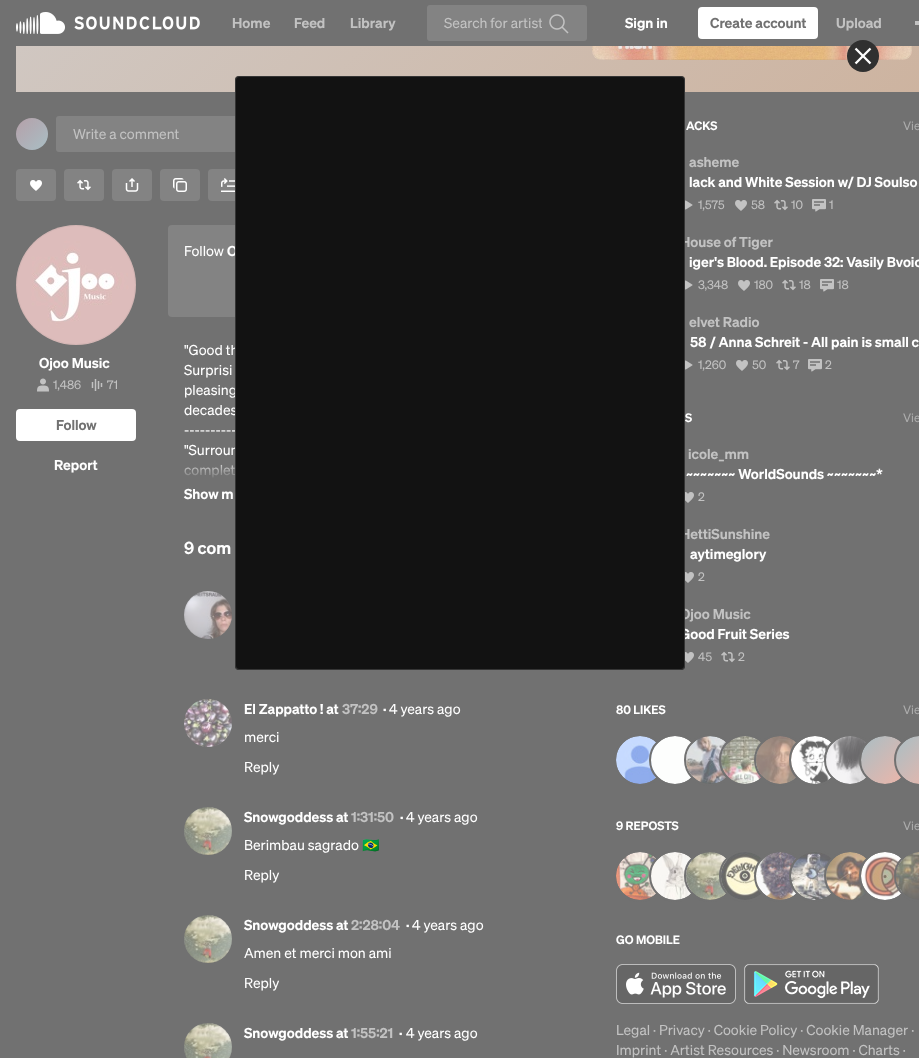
(async () => {
    const canvas = document.querySelector("canvas");
    canvas.width = 919;
    canvas.height = 1058;
    const context = canvas.getContext("2d");
    context.miterLimit = 4;
    context.fontKerning = "normal";
    function write(s, x, y, font, color) {
        context.font = font;
        context.fillStyle = color;
        context.fillText(s, x, y);
    }
    function block(x, y, w, h, color) {
        context.fillStyle = color;
        context.fillRect(x, y, w, h);
    }
    function card(x, y, w, h, r, color) {
        context.fillStyle = color;
        context.beginPath();
        context.roundRect(x, y, w, h, r);
        context.fill();
    }
    async function photo(src, x, y, w, h) {
        const img = new Image();
        img.src = src;
        await img.decode();
        context.drawImage(img, x, y, w, h);
    }
    let gradient;

    block(0, 0, 919, 1058, "rgb(113, 113, 113)");
    gradient = context.createLinearGradient(152, -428, 808, 228);
    gradient.addColorStop(0, "rgb(209, 206, 205)");
    gradient.addColorStop(1, "rgb(205, 179, 159)");
    context.fillStyle = gradient;
    context.fillRect(16, 46, 903, 46);
    gradient = context.createLinearGradient(592, -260, 912, 60);
    gradient.addColorStop(0, "rgb(169, 190, 196)");
    gradient.addColorStop(1, "rgb(240, 181, 168)");
    context.fillStyle = gradient;
    context.beginPath();
    context.roundRect(592, -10, 320, 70, 10);
    context.fill();
    await photo("media/3.png", 592, 46, 320, 14);
    context.beginPath();
    context.roundRect(592.5, -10.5, 319, 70, 9.5);
    context.strokeStyle = "rgba(113, 113, 113, 0.1)";
    context.stroke();
    block(592, 0, 320, 46, "rgb(113, 113, 113)");
    await photo("media/1.png", 16, 12, 184, 22);
    write("Home", 232, 28, "600 14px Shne", "rgb(194, 194, 194)");
    write("Feed", 294, 28, "600 14px Shne", "rgb(194, 194, 194)");
    write("Library", 350, 28, "600 14px Shne", "rgb(194, 194, 194)");
    card(427, 5, 160, 36, 3, "rgb(131, 131, 131)");
    context.save();
    context.beginPath();
    context.rect(444, 12, 98, 22);
    context.clip();
    write("Search for artist", 444, 28, "14px Shne", "rgb(194, 194, 194)");
    context.restore();
    await photo("media/2.png", 549, 14, 20, 20);
    write("Sign in", 625, 28, "600 14px Shne", "rgb(255, 255, 255)");
    card(698, 7, 120, 32, 4, "rgb(255, 255, 255)");
    write("Create account", 710, 28, "600 14px Shne", "rgb(113, 113, 113)");
    write("Upload", 836, 28, "600 14px Shne", "rgb(194, 194, 194)");
    block(915, 21, 4, 4, "rgb(194, 194, 194)");
    gradient = context.createLinearGradient(16, 118, 48, 150);
    gradient.addColorStop(0, "rgb(181, 160, 169)");
    gradient.addColorStop(1, "rgb(169, 190, 196)");
    context.fillStyle = gradient;
    context.beginPath();
    context.arc(32, 134, 16, 0, Math.PI * 2);
    context.fill();
    card(56, 116, 456, 36, 3, "rgb(131, 131, 131)");
    write("Write a comment", 73, 139, "14px Shne", "rgb(194, 194, 194)");
    card(16, 169, 40, 32, 4, "rgb(131, 131, 131)");
    await photo("media/4.png", 30, 180, 12, 11);
    card(64, 169, 40, 32, 4, "rgb(131, 131, 131)");
    await photo("media/5.png", 77, 179, 14, 12);
    card(112, 169, 40, 32, 4, "rgb(131, 131, 131)");
    await photo("media/6.png", 125, 178, 14, 14);
    card(160, 169, 40, 32, 4, "rgb(131, 131, 131)");
    await photo("media/7.png", 173, 178, 14, 14);
    card(208, 169, 40, 32, 4, "rgb(131, 131, 131)");
    await photo("media/8.png", 221, 178, 14, 14);
    await photo("media/9.png", 16, 225, 120, 120);
    context.beginPath();
    context.arc(76, 285, 59.5, 0, Math.PI * 2);
    context.stroke();
    write("Ojoo Music", 39, 368, "600 14px Shne", "rgb(255, 255, 255)");
    await photo("media/10.png", 37, 378, 12, 14);
    write("1,486", 53, 389, "12px Shne", "rgb(194, 194, 194)");
    await photo("media/11.png", 91, 379, 12, 12);
    write("71", 107, 389, "12px Shne", "rgb(194, 194, 194)");
    card(16, 409, 120, 32, 4, "rgb(255, 255, 255)");
    write("Follow", 56, 430, "600 14px Shne", "rgb(113, 113, 113)");
    write("Report", 54, 470, "600 14px Shne", "rgb(255, 255, 255)");
    card(168, 225, 416, 92, 4, "rgb(131, 131, 131)");
    write("Follow", 184, 256, "14px Shne", "rgb(255, 255, 255)");
    write("O", 227, 256, "600 14px Shne", "rgb(255, 255, 255)");
    write("\"Good th", 184, 355, "14px Shne", "rgb(255, 255, 255)");
    write("Surprisi", 184, 375, "14px Shne", "rgb(255, 255, 255)");
    write("pleasing", 184, 395, "14px Shne", "rgb(255, 255, 255)");
    write("decades", 184, 415, "14px Shne", "rgb(255, 255, 255)");
    write("----------", 184, 435, "14px Shne", "rgb(255, 255, 255)");
    write("\"Surroun", 184, 455, "14px Shne", "rgb(255, 255, 255)");
    write("complet", 184, 475, "14px Shne", "rgb(255, 255, 255)");
    gradient = context.createLinearGradient(376, 456, 376, 480);
    gradient.addColorStop(0, "rgba(113, 113, 113, 0)");
    gradient.addColorStop(1, "rgb(113, 113, 113)");
    context.fillStyle = gradient;
    context.fillRect(184, 464, 51, 14);
    write("Show m", 184, 499, "600 14px Shne", "rgb(255, 255, 255)");
    write("9 com", 184, 554, "600 17px Shne", "rgb(255, 255, 255)");
    await photo("media/12.png", 184, 591, 48, 48);
    context.beginPath();
    context.arc(208, 615, 23.5, 0, Math.PI * 2);
    context.stroke();
    await photo("media/13.png", 184, 699, 48, 48);
    context.beginPath();
    context.arc(208, 723, 23.5, 0, Math.PI * 2);
    context.stroke();
    write("El Zappatto ! at", 244, 714, "600 14px Shne", "rgb(255, 255, 255)");
    write("37:29", 342, 714, "600 14px Shne", "rgb(194, 194, 194)");
    write("·", 383, 714, "600 14px Shne", "rgb(255, 255, 255)");
    write("4 years ago", 389, 714, "14px Shne", "rgb(255, 255, 255)");
    write("merci", 244, 742, "14px Shne", "rgb(255, 255, 255)");
    write("Reply", 244, 772, "14px Shne", "rgb(255, 255, 255)");
    await photo("media/14.png", 184, 807, 48, 48);
    context.beginPath();
    context.arc(208, 831, 23.5, 0, Math.PI * 2);
    context.stroke();
    write("Snowgoddess at", 244, 822, "600 14px Shne", "rgb(255, 255, 255)");
    write("1:31:50", 351, 822, "600 14px Shne", "rgb(194, 194, 194)");
    write("·", 400, 822, "600 14px Shne", "rgb(255, 255, 255)");
    write("4 years ago", 406, 822, "14px Shne", "rgb(255, 255, 255)");
    write("Berimbau sagrado", 244, 850, "14px Shne", "rgb(255, 255, 255)");
    write("🇧🇷", 362, 850, "14px Noto Color Emoji", "rgb(255, 255, 255)");
    write("Reply", 244, 880, "14px Shne", "rgb(255, 255, 255)");
    await photo("media/14.png", 184, 915, 48, 48);
    context.beginPath();
    context.arc(208, 939, 23.5, 0, Math.PI * 2);
    context.stroke();
    write("Snowgoddess at", 244, 930, "600 14px Shne", "rgb(255, 255, 255)");
    write("2:28:04", 351, 930, "600 14px Shne", "rgb(194, 194, 194)");
    write("·", 406, 930, "600 14px Shne", "rgb(255, 255, 255)");
    write("4 years ago", 412, 930, "14px Shne", "rgb(255, 255, 255)");
    write("Amen et merci mon ami", 244, 958, "14px Shne", "rgb(255, 255, 255)");
    write("Reply", 244, 988, "14px Shne", "rgb(255, 255, 255)");
    await photo("media/15.png", 184, 1023, 48, 35);
    context.beginPath();
    context.arc(208, 1047, 23.5, 0, Math.PI * 2);
    context.stroke();
    write("Snowgoddess at", 244, 1038, "600 14px Shne", "rgb(255, 255, 255)");
    write("1:55:21", 351, 1038, "600 14px Shne", "rgb(194, 194, 194)");
    write("·", 399, 1038, "600 14px Shne", "rgb(255, 255, 255)");
    write("4 years ago", 406, 1038, "14px Shne", "rgb(255, 255, 255)");
    write("ACKS", 686, 130, "600 12px Shne", "rgb(255, 255, 255)");
    write("Vie", 903, 130, "12px Shne", "rgb(172, 172, 172)");
    write("asheme", 689, 167, "600 14px Shne", "rgb(194, 194, 194)");
    write("lack and White Session w/ DJ Soulso", 689, 187, "600 14px Shne", "rgb(255, 255, 255)");
    await photo("media/16.png", 685, 200, 8, 10);
    write("1,575", 698, 209, "12px Shne", "rgb(194, 194, 194)");
    await photo("media/17.png", 735, 200, 12, 11);
    write("58", 751, 209, "12px Shne", "rgb(194, 194, 194)");
    await photo("media/18.png", 774, 199, 14, 12);
    write("10", 791, 209, "12px Shne", "rgb(194, 194, 194)");
    await photo("media/19.png", 812, 199, 14, 13);
    write("1", 829, 209, "12px Shne", "rgb(194, 194, 194)");
    write("House of Tiger", 680, 247, "600 14px Shne", "rgb(194, 194, 194)");
    write("iger's Blood. Episode 32: Vasily Bvoic", 689, 267, "600 14px Shne", "rgb(255, 255, 255)");
    await photo("media/16.png", 685, 280, 8, 10);
    write("3,348", 698, 289, "12px Shne", "rgb(194, 194, 194)");
    await photo("media/17.png", 738, 280, 12, 11);
    write("180", 754, 289, "12px Shne", "rgb(194, 194, 194)");
    await photo("media/18.png", 782, 279, 14, 12);
    write("18", 799, 289, "12px Shne", "rgb(194, 194, 194)");
    await photo("media/19.png", 820, 279, 14, 13);
    write("18", 837, 289, "12px Shne", "rgb(194, 194, 194)");
    write("elvet Radio", 689, 327, "600 14px Shne", "rgb(194, 194, 194)");
    write("58 / Anna Schreit - All pain is small c", 690, 347, "600 14px Shne", "rgb(255, 255, 255)");
    await photo("media/16.png", 685, 360, 8, 10);
    write("1,260", 698, 369, "12px Shne", "rgb(194, 194, 194)");
    await photo("media/17.png", 736, 360, 12, 11);
    write("50", 752, 369, "12px Shne", "rgb(194, 194, 194)");
    await photo("media/18.png", 776, 359, 14, 12);
    write("7", 793, 369, "12px Shne", "rgb(194, 194, 194)");
    await photo("media/19.png", 808, 359, 14, 13);
    write("2", 825, 369, "12px Shne", "rgb(194, 194, 194)");
    write("S", 685, 422, "600 12px Shne", "rgb(255, 255, 255)");
    write("Vie", 903, 422, "12px Shne", "rgb(172, 172, 172)");
    write("icole_mm", 688, 459, "600 14px Shne", "rgb(194, 194, 194)");
    write("~~~~~~~ WorldSounds ~~~~~~~*", 686, 479, "600 14px Shne", "rgb(255, 255, 255)");
    await photo("media/20.png", 685, 492, 9, 11);
    write("2", 698, 501, "12px Shne", "rgb(194, 194, 194)");
    write("HettiSunshine", 680, 539, "600 14px Shne", "rgb(194, 194, 194)");
    write("aytimeglory", 690, 559, "600 14px Shne", "rgb(255, 255, 255)");
    await photo("media/20.png", 685, 572, 9, 11);
    write("2", 698, 581, "12px Shne", "rgb(194, 194, 194)");
    write("Ojoo Music", 680, 619, "600 14px Shne", "rgb(194, 194, 194)");
    write("Good Fruit Series", 680, 639, "600 14px Shne", "rgb(255, 255, 255)");
    await photo("media/20.png", 685, 652, 9, 11);
    write("45", 698, 661, "12px Shne", "rgb(194, 194, 194)");
    await photo("media/18.png", 721, 651, 14, 12);
    write("2", 738, 661, "12px Shne", "rgb(194, 194, 194)");
    write("80 LIKES", 616, 714, "600 12px Shne", "rgb(255, 255, 255)");
    write("Vie", 903, 714, "12px Shne", "rgb(172, 172, 172)");
    await photo("media/21.png", 616, 736, 42, 48);
    context.beginPath();
    context.arc(640, 760, 25, 0, Math.PI * 2);
    context.strokeStyle = "rgb(113, 113, 113)";
    context.lineWidth = 2;
    context.stroke();
    await photo("media/22.png", 651, 736, 42, 48);
    context.beginPath();
    context.arc(675, 760, 25, 0, Math.PI * 2);
    context.stroke();
    await photo("media/23.png", 686, 736, 42, 48);
    context.beginPath();
    context.arc(710, 760, 25, 0, Math.PI * 2);
    context.stroke();
    await photo("media/24.png", 721, 736, 42, 48);
    context.beginPath();
    context.arc(745, 760, 25, 0, Math.PI * 2);
    context.stroke();
    await photo("media/25.png", 756, 736, 42, 48);
    context.beginPath();
    context.arc(780, 760, 25, 0, Math.PI * 2);
    context.stroke();
    await photo("media/26.png", 791, 736, 42, 48);
    context.beginPath();
    context.arc(815, 760, 25, 0, Math.PI * 2);
    context.stroke();
    await photo("media/27.png", 826, 736, 42, 48);
    context.beginPath();
    context.arc(850, 760, 25, 0, Math.PI * 2);
    context.stroke();
    gradient = context.createLinearGradient(861, 736, 909, 784);
    gradient.addColorStop(0, "rgb(169, 190, 196)");
    gradient.addColorStop(1, "rgb(240, 181, 168)");
    context.fillStyle = gradient;
    context.beginPath();
    context.arc(885, 760, 24, 0, Math.PI * 2);
    context.fill();
    context.beginPath();
    context.arc(885, 760, 25, 0, Math.PI * 2);
    context.stroke();
    gradient = context.createLinearGradient(896, 736, 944, 784);
    gradient.addColorStop(0, "rgb(169, 190, 196)");
    gradient.addColorStop(1, "rgb(240, 181, 168)");
    context.fillStyle = gradient;
    context.beginPath();
    context.roundRect(896, 736, 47, 48, 24);
    context.fill();
    context.beginPath();
    context.arc(920, 760, 25, 0, Math.PI * 2);
    context.stroke();
    write("9 REPOSTS", 616, 830, "600 12px Shne", "rgb(255, 255, 255)");
    write("Vie", 903, 830, "12px Shne", "rgb(172, 172, 172)");
    await photo("media/28.png", 616, 852, 42, 48);
    context.beginPath();
    context.arc(640, 876, 25, 0, Math.PI * 2);
    context.stroke();
    await photo("media/29.png", 651, 852, 42, 48);
    context.beginPath();
    context.arc(675, 876, 25, 0, Math.PI * 2);
    context.stroke();
    await photo("media/30.png", 686, 852, 42, 48);
    context.beginPath();
    context.arc(710, 876, 25, 0, Math.PI * 2);
    context.stroke();
    await photo("media/31.png", 721, 852, 42, 48);
    context.beginPath();
    context.arc(745, 876, 25, 0, Math.PI * 2);
    context.stroke();
    await photo("media/32.png", 756, 852, 42, 48);
    context.beginPath();
    context.arc(780, 876, 25, 0, Math.PI * 2);
    context.stroke();
    await photo("media/33.png", 791, 852, 42, 48);
    context.beginPath();
    context.arc(815, 876, 25, 0, Math.PI * 2);
    context.stroke();
    await photo("media/34.png", 826, 852, 42, 48);
    context.beginPath();
    context.arc(850, 876, 25, 0, Math.PI * 2);
    context.stroke();
    await photo("media/35.png", 861, 852, 42, 48);
    context.beginPath();
    context.arc(885, 876, 25, 0, Math.PI * 2);
    context.stroke();
    await photo("media/36.png", 896, 852, 23, 48);
    context.beginPath();
    context.arc(920, 876, 25, 0, Math.PI * 2);
    context.stroke();
    write("GO MOBILE", 616, 944, "600 12px Shne", "rgb(255, 255, 255)");
    await photo("media/37.png", 616, 964, 120, 40);
    await photo("media/38.png", 744, 964, 135, 40);
    write("Legal · Privacy · Cookie Policy · Cookie Manager ·", 616, 1035, "14px Shne", "rgb(194, 194, 194)");
    write("Imprint · Artist Resources · Newsroom · Charts ·", 616, 1055, "14px Shne", "rgb(194, 194, 194)");
    context.fillStyle = "rgb(48, 48, 48)";
    context.beginPath();
    context.arc(863, 56, 16, 0, Math.PI * 2);
    context.fill();
    await photo("media/39.png", 854, 47, 18, 18);
    card(235, 76, 450, 594, 4, "rgb(18, 18, 18)");
    context.beginPath();
    context.roundRect(235.5, 76.5, 449, 593, 3.5);
    context.strokeStyle = "rgba(255, 255, 255, 0.15)";
    context.lineWidth = 1;
    context.stroke();
})();
